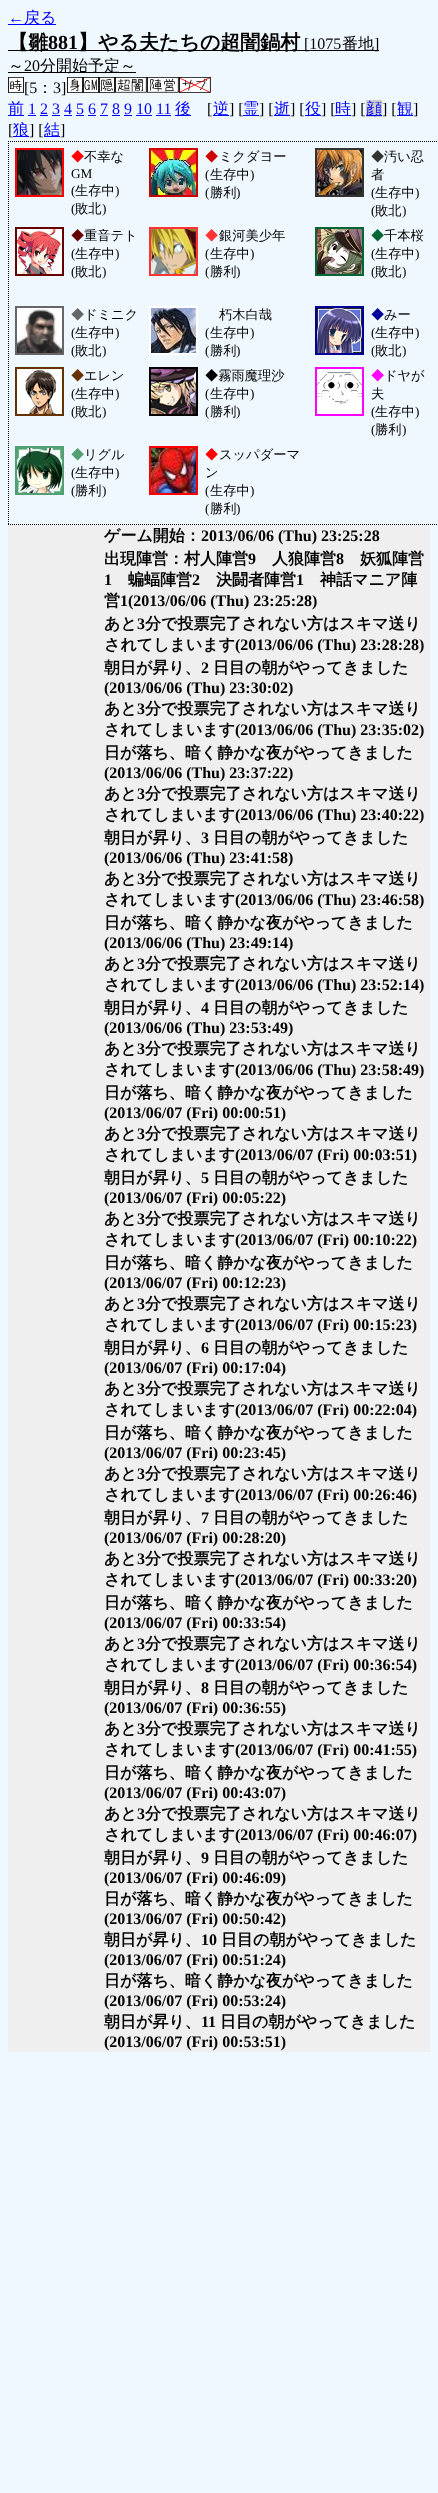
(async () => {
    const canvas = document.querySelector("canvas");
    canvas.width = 438;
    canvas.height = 2493;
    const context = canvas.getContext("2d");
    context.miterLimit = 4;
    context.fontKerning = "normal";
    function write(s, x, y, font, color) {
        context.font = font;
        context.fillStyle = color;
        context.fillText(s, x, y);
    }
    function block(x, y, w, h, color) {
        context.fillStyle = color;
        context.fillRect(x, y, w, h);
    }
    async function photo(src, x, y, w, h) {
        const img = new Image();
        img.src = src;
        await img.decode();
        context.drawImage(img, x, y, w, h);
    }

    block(0, 0, 438, 2493, "rgb(240, 248, 255)");
    write("←", 8, 23, "16px Liberation Serif", "rgb(0, 0, 255)");
    block(8, 24, 48, 1, "rgb(0, 0, 255)");
    write("戻る", 24, 23, "500 16px WenQuanYi Zen Hei", "rgb(0, 0, 255)");
    block(8, 50, 371, 1, "rgb(0, 0, 0)");
    write("【雛", 8, 49, "bold 20px WenQuanYi Zen Hei", "rgb(0, 0, 0)");
    write("881", 48, 49, "bold 20px Liberation Serif", "rgb(0, 0, 0)");
    write("】やる夫たちの超闇鍋村", 78, 49, "bold 20px WenQuanYi Zen Hei", "rgb(0, 0, 0)");
    write("[1075", 304, 49, "16px Liberation Serif", "rgb(0, 0, 0)");
    write("番地", 342, 49, "500 16px WenQuanYi Zen Hei", "rgb(0, 0, 0)");
    write("]", 374, 49, "16px Liberation Serif", "rgb(0, 0, 0)");
    write("～", 8, 71, "500 16px WenQuanYi Zen Hei", "rgb(0, 0, 0)");
    block(8, 72, 128, 1, "rgb(0, 0, 0)");
    write("20", 24, 71, "16px Liberation Serif", "rgb(0, 0, 0)");
    write("分開始予定～", 40, 71, "500 16px WenQuanYi Zen Hei", "rgb(0, 0, 0)");
    await photo("media/1.png", 8, 77, 16, 16);
    write("[5", 24, 93, "16px Liberation Serif", "rgb(0, 0, 0)");
    write("：", 37, 93, "500 16px WenQuanYi Zen Hei", "rgb(0, 0, 0)");
    write("3]", 53, 93, "16px Liberation Serif", "rgb(0, 0, 0)");
    await photo("media/2.png", 67, 77, 16, 16);
    await photo("media/3.png", 83, 77, 16, 16);
    await photo("media/4.png", 99, 77, 16, 16);
    await photo("media/5.png", 115, 77, 32, 16);
    await photo("media/6.png", 147, 77, 32, 16);
    await photo("media/7.png", 179, 77, 32, 16);
    block(8, 115, 16, 1, "rgb(0, 0, 255)");
    write("前", 8, 114, "500 16px WenQuanYi Zen Hei", "rgb(0, 0, 255)");
    write("1 2 3 4 5 6 7 8 9 10 11", 28, 114, "16px Liberation Serif", "rgb(0, 0, 255)");
    block(28, 115, 8, 1, "rgb(0, 0, 255)");
    block(175, 115, 16, 1, "rgb(0, 0, 255)");
    write("後", 175, 114, "500 16px WenQuanYi Zen Hei", "rgb(0, 0, 255)");
    write("[", 207, 114, "16px Liberation Serif", "rgb(0, 0, 0)");
    block(213, 115, 16, 1, "rgb(0, 0, 255)");
    write("逆", 213, 114, "500 16px WenQuanYi Zen Hei", "rgb(0, 0, 255)");
    write("] [", 229, 114, "16px Liberation Serif", "rgb(0, 0, 0)");
    block(243, 115, 16, 1, "rgb(0, 0, 255)");
    write("霊", 243, 114, "500 16px WenQuanYi Zen Hei", "rgb(0, 0, 255)");
    write("] [", 259, 114, "16px Liberation Serif", "rgb(0, 0, 0)");
    block(274, 115, 16, 1, "rgb(0, 0, 255)");
    write("逝", 274, 114, "500 16px WenQuanYi Zen Hei", "rgb(0, 0, 255)");
    write("] [", 290, 114, "16px Liberation Serif", "rgb(0, 0, 0)");
    block(305, 115, 16, 1, "rgb(0, 0, 255)");
    write("役", 305, 114, "500 16px WenQuanYi Zen Hei", "rgb(0, 0, 255)");
    write("] [", 321, 114, "16px Liberation Serif", "rgb(0, 0, 0)");
    block(335, 115, 16, 1, "rgb(0, 0, 255)");
    write("時", 335, 114, "500 16px WenQuanYi Zen Hei", "rgb(0, 0, 255)");
    write("] [", 351, 114, "16px Liberation Serif", "rgb(0, 0, 0)");
    block(366, 100, 16, 17, "rgb(204, 204, 204)");
    block(366, 115, 16, 1, "rgb(0, 0, 255)");
    write("顔", 366, 114, "500 16px WenQuanYi Zen Hei", "rgb(0, 0, 255)");
    write("] [", 382, 114, "16px Liberation Serif", "rgb(0, 0, 0)");
    block(397, 115, 16, 1, "rgb(0, 0, 255)");
    write("観", 397, 114, "500 16px WenQuanYi Zen Hei", "rgb(0, 0, 255)");
    write("]", 413, 114, "16px Liberation Serif", "rgb(0, 0, 0)");
    block(40, 115, 8, 1, "rgb(0, 0, 255)");
    block(52, 115, 8, 1, "rgb(0, 0, 255)");
    block(64, 115, 8, 1, "rgb(0, 0, 255)");
    block(76, 115, 8, 1, "rgb(0, 0, 255)");
    block(88, 115, 8, 1, "rgb(0, 0, 255)");
    block(100, 115, 8, 1, "rgb(0, 0, 255)");
    block(112, 115, 8, 1, "rgb(0, 0, 255)");
    block(124, 115, 8, 1, "rgb(0, 0, 255)");
    block(136, 115, 16, 1, "rgb(0, 0, 255)");
    block(156, 115, 15, 1, "rgb(0, 0, 255)");
    write("[", 8, 135, "16px Liberation Serif", "rgb(0, 0, 0)");
    block(13, 136, 16, 1, "rgb(0, 0, 255)");
    write("狼", 13, 135, "500 16px WenQuanYi Zen Hei", "rgb(0, 0, 255)");
    write("] [", 29, 135, "16px Liberation Serif", "rgb(0, 0, 0)");
    block(44, 136, 16, 1, "rgb(0, 0, 255)");
    write("結", 44, 135, "500 16px WenQuanYi Zen Hei", "rgb(0, 0, 255)");
    write("]", 60, 135, "16px Liberation Serif", "rgb(0, 0, 0)");
    context.beginPath();
    context.moveTo(8, 141.5);
    context.lineTo(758, 141.5);
    context.strokeStyle = "rgb(0, 0, 0)";
    context.setLineDash([1, 1]);
    context.stroke();
    context.beginPath();
    context.moveTo(8, 524.5);
    context.lineTo(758, 524.5);
    context.stroke();
    context.beginPath();
    context.moveTo(8.5, 141);
    context.lineTo(8.5, 525);
    context.stroke();
    context.strokeStyle = "rgb(255, 0, 0)";
    context.lineWidth = 2;
    context.setLineDash([]);
    context.strokeRect(16, 149, 47, 47);
    await photo("media/8.png", 17, 150, 45, 45);
    write("◆", 71, 161, "500 13.25px WenQuanYi Zen Hei", "rgb(255, 0, 0)");
    write("不幸な", 84, 161, "500 13.25px WenQuanYi Zen Hei", "rgb(0, 0, 0)");
    write("GM", 71, 178, "13.25px Liberation Serif", "rgb(0, 0, 0)");
    write("(", 71, 195, "13.25px Liberation Serif", "rgb(0, 0, 0)");
    write("生存中", 75, 195, "500 13.25px WenQuanYi Zen Hei", "rgb(0, 0, 0)");
    write(")", 115, 195, "13.25px Liberation Serif", "rgb(0, 0, 0)");
    write("(", 71, 213, "13.25px Liberation Serif", "rgb(0, 0, 0)");
    write("敗北", 75, 213, "500 13.25px WenQuanYi Zen Hei", "rgb(0, 0, 0)");
    write(")", 102, 213, "13.25px Liberation Serif", "rgb(0, 0, 0)");
    context.strokeStyle = "rgb(204, 0, 0)";
    context.strokeRect(150, 149, 47, 47);
    await photo("media/9.png", 151, 150, 45, 45);
    write("◆", 205, 161, "500 13.25px WenQuanYi Zen Hei", "rgb(204, 0, 0)");
    write("ミクダヨー", 219, 161, "500 13.25px WenQuanYi Zen Hei", "rgb(0, 0, 0)");
    write("(", 205, 179, "13.25px Liberation Serif", "rgb(0, 0, 0)");
    write("生存中", 210, 179, "500 13.25px WenQuanYi Zen Hei", "rgb(0, 0, 0)");
    write(")", 250, 179, "13.25px Liberation Serif", "rgb(0, 0, 0)");
    write("(", 205, 197, "13.25px Liberation Serif", "rgb(0, 0, 0)");
    write("勝利", 210, 197, "500 13.25px WenQuanYi Zen Hei", "rgb(0, 0, 0)");
    write(")", 236, 197, "13.25px Liberation Serif", "rgb(0, 0, 0)");
    context.strokeStyle = "rgb(51, 51, 51)";
    context.strokeRect(316, 149, 47, 47);
    await photo("media/10.png", 317, 150, 45, 45);
    write("◆", 371, 161, "500 13.25px WenQuanYi Zen Hei", "rgb(51, 51, 51)");
    write("汚い忍", 384, 161, "500 13.25px WenQuanYi Zen Hei", "rgb(0, 0, 0)");
    write("者", 371, 179, "500 13.25px WenQuanYi Zen Hei", "rgb(0, 0, 0)");
    write("(", 371, 197, "13.25px Liberation Serif", "rgb(0, 0, 0)");
    write("生存中", 375, 197, "500 13.25px WenQuanYi Zen Hei", "rgb(0, 0, 0)");
    write(")", 415, 197, "13.25px Liberation Serif", "rgb(0, 0, 0)");
    write("(", 371, 215, "13.25px Liberation Serif", "rgb(0, 0, 0)");
    write("敗北", 375, 215, "500 13.25px WenQuanYi Zen Hei", "rgb(0, 0, 0)");
    write(")", 402, 215, "13.25px Liberation Serif", "rgb(0, 0, 0)");
    context.strokeStyle = "rgb(102, 0, 0)";
    context.strokeRect(16, 228, 47, 47);
    await photo("media/11.png", 17, 229, 45, 45);
    write("◆", 71, 240, "500 13.25px WenQuanYi Zen Hei", "rgb(102, 0, 0)");
    write("重音テト", 84, 240, "500 13.25px WenQuanYi Zen Hei", "rgb(0, 0, 0)");
    write("(", 71, 258, "13.25px Liberation Serif", "rgb(0, 0, 0)");
    write("生存中", 75, 258, "500 13.25px WenQuanYi Zen Hei", "rgb(0, 0, 0)");
    write(")", 115, 258, "13.25px Liberation Serif", "rgb(0, 0, 0)");
    write("(", 71, 276, "13.25px Liberation Serif", "rgb(0, 0, 0)");
    write("敗北", 75, 276, "500 13.25px WenQuanYi Zen Hei", "rgb(0, 0, 0)");
    write(")", 102, 276, "13.25px Liberation Serif", "rgb(0, 0, 0)");
    context.strokeStyle = "rgb(255, 51, 51)";
    context.strokeRect(150, 228, 47, 47);
    await photo("media/12.png", 151, 229, 45, 45);
    write("◆", 205, 240, "500 13.25px WenQuanYi Zen Hei", "rgb(255, 51, 51)");
    write("銀河美少年", 219, 240, "500 13.25px WenQuanYi Zen Hei", "rgb(0, 0, 0)");
    write("(", 205, 258, "13.25px Liberation Serif", "rgb(0, 0, 0)");
    write("生存中", 210, 258, "500 13.25px WenQuanYi Zen Hei", "rgb(0, 0, 0)");
    write(")", 250, 258, "13.25px Liberation Serif", "rgb(0, 0, 0)");
    write("(", 205, 276, "13.25px Liberation Serif", "rgb(0, 0, 0)");
    write("勝利", 210, 276, "500 13.25px WenQuanYi Zen Hei", "rgb(0, 0, 0)");
    write(")", 236, 276, "13.25px Liberation Serif", "rgb(0, 0, 0)");
    context.strokeStyle = "rgb(0, 102, 51)";
    context.strokeRect(316, 228, 47, 47);
    await photo("media/13.png", 317, 229, 45, 45);
    write("◆", 371, 240, "500 13.25px WenQuanYi Zen Hei", "rgb(0, 102, 51)");
    write("千本桜", 384, 240, "500 13.25px WenQuanYi Zen Hei", "rgb(0, 0, 0)");
    write("(", 371, 258, "13.25px Liberation Serif", "rgb(0, 0, 0)");
    write("生存中", 375, 258, "500 13.25px WenQuanYi Zen Hei", "rgb(0, 0, 0)");
    write(")", 415, 258, "13.25px Liberation Serif", "rgb(0, 0, 0)");
    write("(", 371, 276, "13.25px Liberation Serif", "rgb(0, 0, 0)");
    write("敗北", 375, 276, "500 13.25px WenQuanYi Zen Hei", "rgb(0, 0, 0)");
    write(")", 402, 276, "13.25px Liberation Serif", "rgb(0, 0, 0)");
    context.strokeStyle = "rgb(102, 102, 102)";
    context.strokeRect(16, 307, 47, 47);
    await photo("media/14.png", 17, 308, 45, 45);
    write("◆", 71, 319, "500 13.25px WenQuanYi Zen Hei", "rgb(102, 102, 102)");
    write("ドミニク", 84, 319, "500 13.25px WenQuanYi Zen Hei", "rgb(0, 0, 0)");
    write("(", 71, 337, "13.25px Liberation Serif", "rgb(0, 0, 0)");
    write("生存中", 75, 337, "500 13.25px WenQuanYi Zen Hei", "rgb(0, 0, 0)");
    write(")", 115, 337, "13.25px Liberation Serif", "rgb(0, 0, 0)");
    write("(", 71, 355, "13.25px Liberation Serif", "rgb(0, 0, 0)");
    write("敗北", 75, 355, "500 13.25px WenQuanYi Zen Hei", "rgb(0, 0, 0)");
    write(")", 102, 355, "13.25px Liberation Serif", "rgb(0, 0, 0)");
    context.strokeStyle = "rgb(255, 255, 255)";
    context.strokeRect(150, 307, 47, 47);
    await photo("media/15.png", 151, 308, 45, 45);
    write("朽木白哉", 219, 319, "500 13.25px WenQuanYi Zen Hei", "rgb(0, 0, 0)");
    write("(", 205, 337, "13.25px Liberation Serif", "rgb(0, 0, 0)");
    write("生存中", 210, 337, "500 13.25px WenQuanYi Zen Hei", "rgb(0, 0, 0)");
    write(")", 250, 337, "13.25px Liberation Serif", "rgb(0, 0, 0)");
    write("(", 205, 355, "13.25px Liberation Serif", "rgb(0, 0, 0)");
    write("勝利", 210, 355, "500 13.25px WenQuanYi Zen Hei", "rgb(0, 0, 0)");
    write(")", 236, 355, "13.25px Liberation Serif", "rgb(0, 0, 0)");
    context.strokeStyle = "rgb(0, 0, 153)";
    context.strokeRect(316, 307, 47, 47);
    await photo("media/16.png", 317, 308, 45, 45);
    write("◆", 371, 319, "500 13.25px WenQuanYi Zen Hei", "rgb(0, 0, 153)");
    write("みー", 384, 319, "500 13.25px WenQuanYi Zen Hei", "rgb(0, 0, 0)");
    write("(", 371, 337, "13.25px Liberation Serif", "rgb(0, 0, 0)");
    write("生存中", 375, 337, "500 13.25px WenQuanYi Zen Hei", "rgb(0, 0, 0)");
    write(")", 415, 337, "13.25px Liberation Serif", "rgb(0, 0, 0)");
    write("(", 371, 355, "13.25px Liberation Serif", "rgb(0, 0, 0)");
    write("敗北", 375, 355, "500 13.25px WenQuanYi Zen Hei", "rgb(0, 0, 0)");
    write(")", 402, 355, "13.25px Liberation Serif", "rgb(0, 0, 0)");
    context.strokeStyle = "rgb(102, 51, 0)";
    context.strokeRect(16, 368, 47, 47);
    await photo("media/17.png", 17, 369, 45, 45);
    write("◆", 71, 380, "500 13.25px WenQuanYi Zen Hei", "rgb(102, 51, 0)");
    write("エレン", 84, 380, "500 13.25px WenQuanYi Zen Hei", "rgb(0, 0, 0)");
    write("(", 71, 398, "13.25px Liberation Serif", "rgb(0, 0, 0)");
    write("生存中", 75, 398, "500 13.25px WenQuanYi Zen Hei", "rgb(0, 0, 0)");
    write(")", 115, 398, "13.25px Liberation Serif", "rgb(0, 0, 0)");
    write("(", 71, 416, "13.25px Liberation Serif", "rgb(0, 0, 0)");
    write("敗北", 75, 416, "500 13.25px WenQuanYi Zen Hei", "rgb(0, 0, 0)");
    write(")", 102, 416, "13.25px Liberation Serif", "rgb(0, 0, 0)");
    context.strokeStyle = "rgb(0, 0, 0)";
    context.strokeRect(150, 368, 47, 47);
    await photo("media/18.png", 151, 369, 45, 45);
    write("◆霧雨魔理沙", 205, 380, "500 13.25px WenQuanYi Zen Hei", "rgb(0, 0, 0)");
    write("(", 205, 398, "13.25px Liberation Serif", "rgb(0, 0, 0)");
    write("生存中", 210, 398, "500 13.25px WenQuanYi Zen Hei", "rgb(0, 0, 0)");
    write(")", 250, 398, "13.25px Liberation Serif", "rgb(0, 0, 0)");
    write("(", 205, 416, "13.25px Liberation Serif", "rgb(0, 0, 0)");
    write("勝利", 210, 416, "500 13.25px WenQuanYi Zen Hei", "rgb(0, 0, 0)");
    write(")", 236, 416, "13.25px Liberation Serif", "rgb(0, 0, 0)");
    context.strokeStyle = "rgb(255, 0, 255)";
    context.strokeRect(316, 368, 47, 47);
    await photo("media/19.png", 317, 369, 45, 45);
    write("◆", 371, 380, "500 13.25px WenQuanYi Zen Hei", "rgb(255, 0, 255)");
    write("ドヤが", 384, 380, "500 13.25px WenQuanYi Zen Hei", "rgb(0, 0, 0)");
    write("夫", 371, 398, "500 13.25px WenQuanYi Zen Hei", "rgb(0, 0, 0)");
    write("(", 371, 416, "13.25px Liberation Serif", "rgb(0, 0, 0)");
    write("生存中", 375, 416, "500 13.25px WenQuanYi Zen Hei", "rgb(0, 0, 0)");
    write(")", 415, 416, "13.25px Liberation Serif", "rgb(0, 0, 0)");
    write("(", 371, 434, "13.25px Liberation Serif", "rgb(0, 0, 0)");
    write("勝利", 375, 434, "500 13.25px WenQuanYi Zen Hei", "rgb(0, 0, 0)");
    write(")", 402, 434, "13.25px Liberation Serif", "rgb(0, 0, 0)");
    context.strokeStyle = "rgb(82, 159, 116)";
    context.strokeRect(16, 447, 47, 47);
    await photo("media/20.png", 17, 448, 45, 45);
    write("◆", 71, 459, "500 13.25px WenQuanYi Zen Hei", "rgb(82, 159, 116)");
    write("リグル", 84, 459, "500 13.25px WenQuanYi Zen Hei", "rgb(0, 0, 0)");
    write("(", 71, 477, "13.25px Liberation Serif", "rgb(0, 0, 0)");
    write("生存中", 75, 477, "500 13.25px WenQuanYi Zen Hei", "rgb(0, 0, 0)");
    write(")", 115, 477, "13.25px Liberation Serif", "rgb(0, 0, 0)");
    write("(", 71, 495, "13.25px Liberation Serif", "rgb(0, 0, 0)");
    write("勝利", 75, 495, "500 13.25px WenQuanYi Zen Hei", "rgb(0, 0, 0)");
    write(")", 102, 495, "13.25px Liberation Serif", "rgb(0, 0, 0)");
    context.strokeStyle = "rgb(255, 0, 0)";
    context.strokeRect(150, 447, 47, 47);
    await photo("media/21.png", 151, 448, 45, 45);
    write("◆", 205, 459, "500 13.25px WenQuanYi Zen Hei", "rgb(255, 0, 0)");
    write("スッパダーマ", 219, 459, "500 13.25px WenQuanYi Zen Hei", "rgb(0, 0, 0)");
    write("ン", 205, 477, "500 13.25px WenQuanYi Zen Hei", "rgb(0, 0, 0)");
    write("(", 205, 495, "13.25px Liberation Serif", "rgb(0, 0, 0)");
    write("生存中", 210, 495, "500 13.25px WenQuanYi Zen Hei", "rgb(0, 0, 0)");
    write(")", 250, 495, "13.25px Liberation Serif", "rgb(0, 0, 0)");
    write("(", 205, 513, "13.25px Liberation Serif", "rgb(0, 0, 0)");
    write("勝利", 210, 513, "500 13.25px WenQuanYi Zen Hei", "rgb(0, 0, 0)");
    write(")", 236, 513, "13.25px Liberation Serif", "rgb(0, 0, 0)");
    block(8, 525, 422, 1527, "rgb(239, 239, 239)");
    write("ゲーム開始：", 104, 541, "bold 16px WenQuanYi Zen Hei", "rgb(0, 0, 0)");
    write("2013/06/06 (Thu) 23:25:28", 201, 541, "bold 16px Liberation Serif", "rgb(0, 0, 0)");
    write("出現陣営：村人陣営", 104, 564, "bold 16px WenQuanYi Zen Hei", "rgb(0, 0, 0)");
    write("9", 248, 564, "bold 16px Liberation Serif", "rgb(0, 0, 0)");
    write("人狼陣営", 272, 564, "bold 16px WenQuanYi Zen Hei", "rgb(0, 0, 0)");
    write("8", 336, 564, "bold 16px Liberation Serif", "rgb(0, 0, 0)");
    write("妖狐陣営", 360, 564, "bold 16px WenQuanYi Zen Hei", "rgb(0, 0, 0)");
    write("1", 104, 585, "bold 16px Liberation Serif", "rgb(0, 0, 0)");
    write("蝙蝠陣営", 128, 585, "bold 16px WenQuanYi Zen Hei", "rgb(0, 0, 0)");
    write("2", 192, 585, "bold 16px Liberation Serif", "rgb(0, 0, 0)");
    write("決闘者陣営", 216, 585, "bold 16px WenQuanYi Zen Hei", "rgb(0, 0, 0)");
    write("1", 296, 585, "bold 16px Liberation Serif", "rgb(0, 0, 0)");
    write("神話マニア陣", 320, 585, "bold 16px WenQuanYi Zen Hei", "rgb(0, 0, 0)");
    write("営", 104, 606, "bold 16px WenQuanYi Zen Hei", "rgb(0, 0, 0)");
    write("1(2013/06/06 (Thu) 23:25:28)", 120, 606, "bold 16px Liberation Serif", "rgb(0, 0, 0)");
    write("あと", 104, 629, "bold 16px WenQuanYi Zen Hei", "rgb(0, 0, 0)");
    write("3", 137, 629, "bold 16px Liberation Serif", "rgb(0, 0, 0)");
    write("分で投票完了されない方はスキマ送り", 145, 629, "bold 16px WenQuanYi Zen Hei", "rgb(0, 0, 0)");
    write("されてしまいます", 104, 650, "bold 16px WenQuanYi Zen Hei", "rgb(0, 0, 0)");
    write("(2013/06/06 (Thu) 23:28:28)", 235, 650, "bold 16px Liberation Serif", "rgb(0, 0, 0)");
    write("朝日が昇り、", 104, 673, "bold 16px WenQuanYi Zen Hei", "rgb(0, 0, 0)");
    write("2", 201, 673, "bold 16px Liberation Serif", "rgb(0, 0, 0)");
    write("日目の朝がやってきました", 213, 673, "bold 16px WenQuanYi Zen Hei", "rgb(0, 0, 0)");
    write("(2013/06/06 (Thu) 23:30:02)", 104, 693, "bold 16px Liberation Serif", "rgb(0, 0, 0)");
    write("あと", 104, 714, "bold 16px WenQuanYi Zen Hei", "rgb(0, 0, 0)");
    write("3", 137, 714, "bold 16px Liberation Serif", "rgb(0, 0, 0)");
    write("分で投票完了されない方はスキマ送り", 145, 714, "bold 16px WenQuanYi Zen Hei", "rgb(0, 0, 0)");
    write("されてしまいます", 104, 735, "bold 16px WenQuanYi Zen Hei", "rgb(0, 0, 0)");
    write("(2013/06/06 (Thu) 23:35:02)", 235, 735, "bold 16px Liberation Serif", "rgb(0, 0, 0)");
    write("日が落ち、暗く静かな夜がやってきました", 104, 758, "bold 16px WenQuanYi Zen Hei", "rgb(0, 0, 0)");
    write("(2013/06/06 (Thu) 23:37:22)", 104, 778, "bold 16px Liberation Serif", "rgb(0, 0, 0)");
    write("あと", 104, 799, "bold 16px WenQuanYi Zen Hei", "rgb(0, 0, 0)");
    write("3", 137, 799, "bold 16px Liberation Serif", "rgb(0, 0, 0)");
    write("分で投票完了されない方はスキマ送り", 145, 799, "bold 16px WenQuanYi Zen Hei", "rgb(0, 0, 0)");
    write("されてしまいます", 104, 820, "bold 16px WenQuanYi Zen Hei", "rgb(0, 0, 0)");
    write("(2013/06/06 (Thu) 23:40:22)", 235, 820, "bold 16px Liberation Serif", "rgb(0, 0, 0)");
    write("朝日が昇り、", 104, 843, "bold 16px WenQuanYi Zen Hei", "rgb(0, 0, 0)");
    write("3", 201, 843, "bold 16px Liberation Serif", "rgb(0, 0, 0)");
    write("日目の朝がやってきました", 213, 843, "bold 16px WenQuanYi Zen Hei", "rgb(0, 0, 0)");
    write("(2013/06/06 (Thu) 23:41:58)", 104, 863, "bold 16px Liberation Serif", "rgb(0, 0, 0)");
    write("あと", 104, 884, "bold 16px WenQuanYi Zen Hei", "rgb(0, 0, 0)");
    write("3", 137, 884, "bold 16px Liberation Serif", "rgb(0, 0, 0)");
    write("分で投票完了されない方はスキマ送り", 145, 884, "bold 16px WenQuanYi Zen Hei", "rgb(0, 0, 0)");
    write("されてしまいます", 104, 905, "bold 16px WenQuanYi Zen Hei", "rgb(0, 0, 0)");
    write("(2013/06/06 (Thu) 23:46:58)", 235, 905, "bold 16px Liberation Serif", "rgb(0, 0, 0)");
    write("日が落ち、暗く静かな夜がやってきました", 104, 928, "bold 16px WenQuanYi Zen Hei", "rgb(0, 0, 0)");
    write("(2013/06/06 (Thu) 23:49:14)", 104, 948, "bold 16px Liberation Serif", "rgb(0, 0, 0)");
    write("あと", 104, 969, "bold 16px WenQuanYi Zen Hei", "rgb(0, 0, 0)");
    write("3", 137, 969, "bold 16px Liberation Serif", "rgb(0, 0, 0)");
    write("分で投票完了されない方はスキマ送り", 145, 969, "bold 16px WenQuanYi Zen Hei", "rgb(0, 0, 0)");
    write("されてしまいます", 104, 990, "bold 16px WenQuanYi Zen Hei", "rgb(0, 0, 0)");
    write("(2013/06/06 (Thu) 23:52:14)", 235, 990, "bold 16px Liberation Serif", "rgb(0, 0, 0)");
    write("朝日が昇り、", 104, 1013, "bold 16px WenQuanYi Zen Hei", "rgb(0, 0, 0)");
    write("4", 201, 1013, "bold 16px Liberation Serif", "rgb(0, 0, 0)");
    write("日目の朝がやってきました", 213, 1013, "bold 16px WenQuanYi Zen Hei", "rgb(0, 0, 0)");
    write("(2013/06/06 (Thu) 23:53:49)", 104, 1033, "bold 16px Liberation Serif", "rgb(0, 0, 0)");
    write("あと", 104, 1054, "bold 16px WenQuanYi Zen Hei", "rgb(0, 0, 0)");
    write("3", 137, 1054, "bold 16px Liberation Serif", "rgb(0, 0, 0)");
    write("分で投票完了されない方はスキマ送り", 145, 1054, "bold 16px WenQuanYi Zen Hei", "rgb(0, 0, 0)");
    write("されてしまいます", 104, 1075, "bold 16px WenQuanYi Zen Hei", "rgb(0, 0, 0)");
    write("(2013/06/06 (Thu) 23:58:49)", 235, 1075, "bold 16px Liberation Serif", "rgb(0, 0, 0)");
    write("日が落ち、暗く静かな夜がやってきました", 104, 1098, "bold 16px WenQuanYi Zen Hei", "rgb(0, 0, 0)");
    write("(2013/06/07 (Fri) 00:00:51)", 104, 1118, "bold 16px Liberation Serif", "rgb(0, 0, 0)");
    write("あと", 104, 1139, "bold 16px WenQuanYi Zen Hei", "rgb(0, 0, 0)");
    write("3", 137, 1139, "bold 16px Liberation Serif", "rgb(0, 0, 0)");
    write("分で投票完了されない方はスキマ送り", 145, 1139, "bold 16px WenQuanYi Zen Hei", "rgb(0, 0, 0)");
    write("されてしまいます", 104, 1160, "bold 16px WenQuanYi Zen Hei", "rgb(0, 0, 0)");
    write("(2013/06/07 (Fri) 00:03:51)", 235, 1160, "bold 16px Liberation Serif", "rgb(0, 0, 0)");
    write("朝日が昇り、", 104, 1183, "bold 16px WenQuanYi Zen Hei", "rgb(0, 0, 0)");
    write("5", 201, 1183, "bold 16px Liberation Serif", "rgb(0, 0, 0)");
    write("日目の朝がやってきました", 213, 1183, "bold 16px WenQuanYi Zen Hei", "rgb(0, 0, 0)");
    write("(2013/06/07 (Fri) 00:05:22)", 104, 1203, "bold 16px Liberation Serif", "rgb(0, 0, 0)");
    write("あと", 104, 1224, "bold 16px WenQuanYi Zen Hei", "rgb(0, 0, 0)");
    write("3", 137, 1224, "bold 16px Liberation Serif", "rgb(0, 0, 0)");
    write("分で投票完了されない方はスキマ送り", 145, 1224, "bold 16px WenQuanYi Zen Hei", "rgb(0, 0, 0)");
    write("されてしまいます", 104, 1245, "bold 16px WenQuanYi Zen Hei", "rgb(0, 0, 0)");
    write("(2013/06/07 (Fri) 00:10:22)", 235, 1245, "bold 16px Liberation Serif", "rgb(0, 0, 0)");
    write("日が落ち、暗く静かな夜がやってきました", 104, 1268, "bold 16px WenQuanYi Zen Hei", "rgb(0, 0, 0)");
    write("(2013/06/07 (Fri) 00:12:23)", 104, 1288, "bold 16px Liberation Serif", "rgb(0, 0, 0)");
    write("あと", 104, 1309, "bold 16px WenQuanYi Zen Hei", "rgb(0, 0, 0)");
    write("3", 137, 1309, "bold 16px Liberation Serif", "rgb(0, 0, 0)");
    write("分で投票完了されない方はスキマ送り", 145, 1309, "bold 16px WenQuanYi Zen Hei", "rgb(0, 0, 0)");
    write("されてしまいます", 104, 1330, "bold 16px WenQuanYi Zen Hei", "rgb(0, 0, 0)");
    write("(2013/06/07 (Fri) 00:15:23)", 235, 1330, "bold 16px Liberation Serif", "rgb(0, 0, 0)");
    write("朝日が昇り、", 104, 1353, "bold 16px WenQuanYi Zen Hei", "rgb(0, 0, 0)");
    write("6", 201, 1353, "bold 16px Liberation Serif", "rgb(0, 0, 0)");
    write("日目の朝がやってきました", 213, 1353, "bold 16px WenQuanYi Zen Hei", "rgb(0, 0, 0)");
    write("(2013/06/07 (Fri) 00:17:04)", 104, 1373, "bold 16px Liberation Serif", "rgb(0, 0, 0)");
    write("あと", 104, 1394, "bold 16px WenQuanYi Zen Hei", "rgb(0, 0, 0)");
    write("3", 137, 1394, "bold 16px Liberation Serif", "rgb(0, 0, 0)");
    write("分で投票完了されない方はスキマ送り", 145, 1394, "bold 16px WenQuanYi Zen Hei", "rgb(0, 0, 0)");
    write("されてしまいます", 104, 1415, "bold 16px WenQuanYi Zen Hei", "rgb(0, 0, 0)");
    write("(2013/06/07 (Fri) 00:22:04)", 235, 1415, "bold 16px Liberation Serif", "rgb(0, 0, 0)");
    write("日が落ち、暗く静かな夜がやってきました", 104, 1438, "bold 16px WenQuanYi Zen Hei", "rgb(0, 0, 0)");
    write("(2013/06/07 (Fri) 00:23:45)", 104, 1458, "bold 16px Liberation Serif", "rgb(0, 0, 0)");
    write("あと", 104, 1479, "bold 16px WenQuanYi Zen Hei", "rgb(0, 0, 0)");
    write("3", 137, 1479, "bold 16px Liberation Serif", "rgb(0, 0, 0)");
    write("分で投票完了されない方はスキマ送り", 145, 1479, "bold 16px WenQuanYi Zen Hei", "rgb(0, 0, 0)");
    write("されてしまいます", 104, 1500, "bold 16px WenQuanYi Zen Hei", "rgb(0, 0, 0)");
    write("(2013/06/07 (Fri) 00:26:46)", 235, 1500, "bold 16px Liberation Serif", "rgb(0, 0, 0)");
    write("朝日が昇り、", 104, 1523, "bold 16px WenQuanYi Zen Hei", "rgb(0, 0, 0)");
    write("7", 201, 1523, "bold 16px Liberation Serif", "rgb(0, 0, 0)");
    write("日目の朝がやってきました", 213, 1523, "bold 16px WenQuanYi Zen Hei", "rgb(0, 0, 0)");
    write("(2013/06/07 (Fri) 00:28:20)", 104, 1543, "bold 16px Liberation Serif", "rgb(0, 0, 0)");
    write("あと", 104, 1564, "bold 16px WenQuanYi Zen Hei", "rgb(0, 0, 0)");
    write("3", 137, 1564, "bold 16px Liberation Serif", "rgb(0, 0, 0)");
    write("分で投票完了されない方はスキマ送り", 145, 1564, "bold 16px WenQuanYi Zen Hei", "rgb(0, 0, 0)");
    write("されてしまいます", 104, 1585, "bold 16px WenQuanYi Zen Hei", "rgb(0, 0, 0)");
    write("(2013/06/07 (Fri) 00:33:20)", 235, 1585, "bold 16px Liberation Serif", "rgb(0, 0, 0)");
    write("日が落ち、暗く静かな夜がやってきました", 104, 1608, "bold 16px WenQuanYi Zen Hei", "rgb(0, 0, 0)");
    write("(2013/06/07 (Fri) 00:33:54)", 104, 1628, "bold 16px Liberation Serif", "rgb(0, 0, 0)");
    write("あと", 104, 1649, "bold 16px WenQuanYi Zen Hei", "rgb(0, 0, 0)");
    write("3", 137, 1649, "bold 16px Liberation Serif", "rgb(0, 0, 0)");
    write("分で投票完了されない方はスキマ送り", 145, 1649, "bold 16px WenQuanYi Zen Hei", "rgb(0, 0, 0)");
    write("されてしまいます", 104, 1670, "bold 16px WenQuanYi Zen Hei", "rgb(0, 0, 0)");
    write("(2013/06/07 (Fri) 00:36:54)", 235, 1670, "bold 16px Liberation Serif", "rgb(0, 0, 0)");
    write("朝日が昇り、", 104, 1693, "bold 16px WenQuanYi Zen Hei", "rgb(0, 0, 0)");
    write("8", 201, 1693, "bold 16px Liberation Serif", "rgb(0, 0, 0)");
    write("日目の朝がやってきました", 213, 1693, "bold 16px WenQuanYi Zen Hei", "rgb(0, 0, 0)");
    write("(2013/06/07 (Fri) 00:36:55)", 104, 1713, "bold 16px Liberation Serif", "rgb(0, 0, 0)");
    write("あと", 104, 1734, "bold 16px WenQuanYi Zen Hei", "rgb(0, 0, 0)");
    write("3", 137, 1734, "bold 16px Liberation Serif", "rgb(0, 0, 0)");
    write("分で投票完了されない方はスキマ送り", 145, 1734, "bold 16px WenQuanYi Zen Hei", "rgb(0, 0, 0)");
    write("されてしまいます", 104, 1755, "bold 16px WenQuanYi Zen Hei", "rgb(0, 0, 0)");
    write("(2013/06/07 (Fri) 00:41:55)", 235, 1755, "bold 16px Liberation Serif", "rgb(0, 0, 0)");
    write("日が落ち、暗く静かな夜がやってきました", 104, 1778, "bold 16px WenQuanYi Zen Hei", "rgb(0, 0, 0)");
    write("(2013/06/07 (Fri) 00:43:07)", 104, 1798, "bold 16px Liberation Serif", "rgb(0, 0, 0)");
    write("あと", 104, 1819, "bold 16px WenQuanYi Zen Hei", "rgb(0, 0, 0)");
    write("3", 137, 1819, "bold 16px Liberation Serif", "rgb(0, 0, 0)");
    write("分で投票完了されない方はスキマ送り", 145, 1819, "bold 16px WenQuanYi Zen Hei", "rgb(0, 0, 0)");
    write("されてしまいます", 104, 1840, "bold 16px WenQuanYi Zen Hei", "rgb(0, 0, 0)");
    write("(2013/06/07 (Fri) 00:46:07)", 235, 1840, "bold 16px Liberation Serif", "rgb(0, 0, 0)");
    write("朝日が昇り、", 104, 1863, "bold 16px WenQuanYi Zen Hei", "rgb(0, 0, 0)");
    write("9", 201, 1863, "bold 16px Liberation Serif", "rgb(0, 0, 0)");
    write("日目の朝がやってきました", 213, 1863, "bold 16px WenQuanYi Zen Hei", "rgb(0, 0, 0)");
    write("(2013/06/07 (Fri) 00:46:09)", 104, 1883, "bold 16px Liberation Serif", "rgb(0, 0, 0)");
    write("日が落ち、暗く静かな夜がやってきました", 104, 1904, "bold 16px WenQuanYi Zen Hei", "rgb(0, 0, 0)");
    write("(2013/06/07 (Fri) 00:50:42)", 104, 1924, "bold 16px Liberation Serif", "rgb(0, 0, 0)");
    write("朝日が昇り、", 104, 1945, "bold 16px WenQuanYi Zen Hei", "rgb(0, 0, 0)");
    write("10", 201, 1945, "bold 16px Liberation Serif", "rgb(0, 0, 0)");
    write("日目の朝がやってきました", 221, 1945, "bold 16px WenQuanYi Zen Hei", "rgb(0, 0, 0)");
    write("(2013/06/07 (Fri) 00:51:24)", 104, 1965, "bold 16px Liberation Serif", "rgb(0, 0, 0)");
    write("日が落ち、暗く静かな夜がやってきました", 104, 1986, "bold 16px WenQuanYi Zen Hei", "rgb(0, 0, 0)");
    write("(2013/06/07 (Fri) 00:53:24)", 104, 2006, "bold 16px Liberation Serif", "rgb(0, 0, 0)");
    write("朝日が昇り、", 104, 2027, "bold 16px WenQuanYi Zen Hei", "rgb(0, 0, 0)");
    write("11", 201, 2027, "bold 16px Liberation Serif", "rgb(0, 0, 0)");
    write("日目の朝がやってきました", 220, 2027, "bold 16px WenQuanYi Zen Hei", "rgb(0, 0, 0)");
    write("(2013/06/07 (Fri) 00:53:51)", 104, 2047, "bold 16px Liberation Serif", "rgb(0, 0, 0)");
})();
